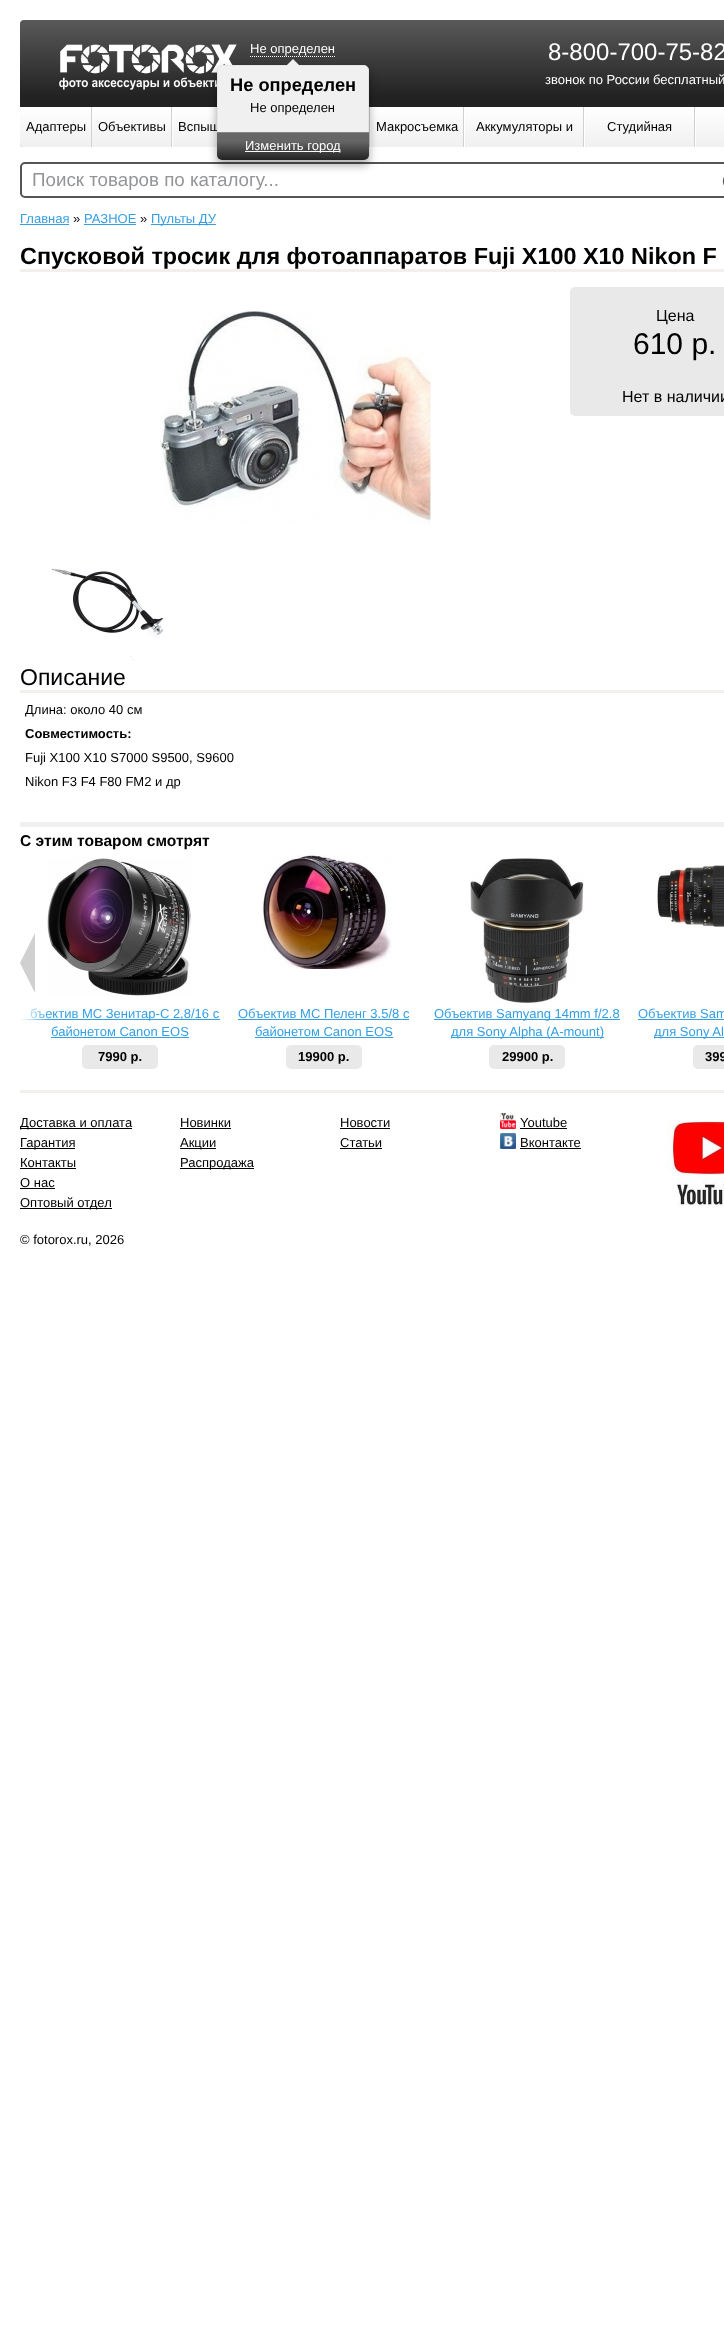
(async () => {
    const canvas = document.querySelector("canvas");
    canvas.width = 724;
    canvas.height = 2337;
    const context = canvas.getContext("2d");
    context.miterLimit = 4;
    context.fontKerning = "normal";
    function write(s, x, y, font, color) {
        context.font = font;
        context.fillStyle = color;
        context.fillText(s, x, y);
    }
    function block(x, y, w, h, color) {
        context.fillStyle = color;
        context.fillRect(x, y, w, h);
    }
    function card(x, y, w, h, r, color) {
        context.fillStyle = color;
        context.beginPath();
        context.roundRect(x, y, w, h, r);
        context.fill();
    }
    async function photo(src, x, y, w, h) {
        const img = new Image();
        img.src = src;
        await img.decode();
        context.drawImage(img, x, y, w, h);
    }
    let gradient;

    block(0, 0, 724, 2337, "rgb(255, 255, 255)");
    gradient = context.createLinearGradient(520, 20, 520, 147);
    gradient.addColorStop(0, "rgb(89, 89, 89)");
    gradient.addColorStop(0.6, "rgb(34, 34, 34)");
    context.fillStyle = gradient;
    context.beginPath();
    context.roundRect(20, 20, 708, 127, 4);
    context.fill();
    await photo("media/1.png", 59, 44, 178, 46);
    write("Не определен", 250, 53, "13px Liberation Sans", "rgb(255, 255, 255)");
    context.beginPath();
    context.moveTo(250, 56.5);
    context.lineTo(335, 56.5);
    context.strokeStyle = "rgb(255, 255, 255)";
    context.setLineDash([1, 1]);
    context.stroke();
    gradient = context.createLinearGradient(205, 107, 205, 147);
    gradient.addColorStop(0, "rgb(255, 255, 255)");
    gradient.addColorStop(1, "rgb(240, 240, 240)");
    context.fillStyle = gradient;
    context.fillRect(173, 107, 44, 40);
    block(370, 107, 1, 40, "rgb(255, 255, 255)");
    gradient = context.createLinearGradient(416, 107, 416, 147);
    gradient.addColorStop(0, "rgb(255, 255, 255)");
    gradient.addColorStop(1, "rgb(240, 240, 240)");
    context.fillStyle = gradient;
    context.fillRect(371, 107, 92, 40);
    block(369, 107, 1, 40, "rgb(209, 208, 208)");
    context.beginPath();
    context.roundRect(21, 163, 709, 34, 4);
    context.strokeStyle = "rgb(85, 85, 85)";
    context.lineWidth = 2;
    context.setLineDash([]);
    context.stroke();
    context.fillStyle = "rgba(0, 0, 0, 0.35)";
    context.filter = "blur(5px)";
    context.beginPath();
    context.roundRect(217, 70, 152, 95, 5);
    context.fill();
    context.filter = "none";
    write("Вспыш", 178, 131, "13px Liberation Sans", "rgb(0, 0, 0)");
    context.fillStyle = "rgb(240, 240, 240)";
    context.beginPath();
    context.roundRect(217.5, 65.5, 151, 94, 4.5);
    context.fill();
    context.strokeStyle = "rgb(229, 229, 229)";
    context.lineWidth = 1;
    context.stroke();
    context.beginPath();
    context.moveTo(300, 66);
    context.lineTo(286, 66);
    context.lineTo(293, 59);
    context.closePath();
    context.fill();
    write("Не определен", 230, 91, "bold 18.25px Liberation Sans", "rgb(0, 0, 0)");
    write("Не определен", 250, 112, "13px Liberation Sans", "rgb(0, 0, 0)");
    context.fillStyle = "rgba(255, 255, 255, 0.14)";
    context.beginPath();
    context.moveTo(217, 155);
    context.lineTo(217, 156);
    context.bezierCurveTo(217, 159, 219, 161, 222, 161);
    context.lineTo(364, 161);
    context.bezierCurveTo(367, 161, 369, 159, 369, 156);
    context.lineTo(369, 155);
    context.bezierCurveTo(369, 158, 367, 160, 364, 160);
    context.lineTo(222, 160);
    context.bezierCurveTo(219, 160, 217, 158, 217, 155);
    context.closePath();
    context.fill();
    gradient = context.createLinearGradient(293, 132, 293, 160);
    gradient.addColorStop(0.33, "rgb(102, 102, 102)");
    gradient.addColorStop(0.83, "rgb(51, 51, 51)");
    gradient.addColorStop(1, "rgb(34, 34, 34)");
    context.fillStyle = gradient;
    context.beginPath();
    context.roundRect(217, 132, 152, 28, [0, 0, 5, 5]);
    context.fill();
    block(217, 132, 152, 1, "rgb(134, 134, 134)");
    block(245, 151, 95, 1, "rgb(255, 255, 255)");
    write("Изменить город", 245, 150, "13px Liberation Sans", "rgb(255, 255, 255)");
    write("8-800-700-75-82", 548, 60, "24px Liberation Sans", "rgb(255, 255, 255)");
    write("звонок по России бесплатный", 545, 84, "13px Liberation Sans", "rgb(255, 255, 255)");
    gradient = context.createLinearGradient(56, 107, 56, 147);
    gradient.addColorStop(0, "rgb(255, 255, 255)");
    gradient.addColorStop(1, "rgb(240, 240, 240)");
    context.fillStyle = gradient;
    context.beginPath();
    context.roundRect(20, 107, 71, 40, [0, 0, 0, 3]);
    context.fill();
    write("Адаптеры", 26, 131, "13px Liberation Sans", "rgb(0, 0, 0)");
    gradient = context.createLinearGradient(131, 107, 131, 147);
    gradient.addColorStop(0, "rgb(255, 255, 255)");
    gradient.addColorStop(1, "rgb(240, 240, 240)");
    context.fillStyle = gradient;
    context.fillRect(92, 107, 79, 40);
    block(172, 107, 1, 40, "rgb(255, 255, 255)");
    block(91, 107, 1, 40, "rgb(209, 208, 208)");
    write("Объективы", 98, 131, "13px Liberation Sans", "rgb(0, 0, 0)");
    block(171, 107, 1, 40, "rgb(209, 208, 208)");
    block(464, 107, 1, 40, "rgb(255, 255, 255)");
    write("Макросъемка", 376, 131, "13px Liberation Sans", "rgb(0, 0, 0)");
    gradient = context.createLinearGradient(523, 107, 523, 147);
    gradient.addColorStop(0, "rgb(255, 255, 255)");
    gradient.addColorStop(1, "rgb(240, 240, 240)");
    context.fillStyle = gradient;
    context.fillRect(465, 107, 118, 40);
    block(584, 107, 1, 40, "rgb(255, 255, 255)");
    block(463, 107, 1, 40, "rgb(209, 208, 208)");
    write("Аккумуляторы и", 476, 131, "13px Liberation Sans", "rgb(0, 0, 0)");
    gradient = context.createLinearGradient(639, 107, 639, 147);
    gradient.addColorStop(0, "rgb(255, 255, 255)");
    gradient.addColorStop(1, "rgb(240, 240, 240)");
    context.fillStyle = gradient;
    context.fillRect(585, 107, 109, 40);
    block(695, 107, 1, 40, "rgb(255, 255, 255)");
    block(583, 107, 1, 40, "rgb(209, 208, 208)");
    write("Студийная", 607, 131, "13px Liberation Sans", "rgb(0, 0, 0)");
    gradient = context.createLinearGradient(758, 107, 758, 147);
    gradient.addColorStop(0, "rgb(255, 255, 255)");
    gradient.addColorStop(1, "rgb(240, 240, 240)");
    context.fillStyle = gradient;
    context.fillRect(696, 107, 28, 40);
    block(694, 107, 1, 40, "rgb(209, 208, 208)");
    write("Поиск товаров по каталогу...", 32, 186, "18.75px Liberation Sans", "rgb(147, 149, 152)");
    await photo("media/2.png", 722, 176, 2, 10);
    write("Главная", 20, 223, "13px Liberation Sans", "rgb(52, 159, 227)");
    block(20, 224, 49, 1, "rgb(52, 159, 227)");
    write("»", 73, 223, "13px Liberation Sans", "rgb(0, 0, 0)");
    write("РАЗНОЕ", 84, 223, "13px Liberation Sans", "rgb(52, 159, 227)");
    block(84, 224, 52, 1, "rgb(52, 159, 227)");
    write("»", 140, 223, "13px Liberation Sans", "rgb(0, 0, 0)");
    block(151, 224, 65, 1, "rgb(52, 159, 227)");
    write("Пульты ДУ", 151, 223, "13px Liberation Sans", "rgb(52, 159, 227)");
    block(20, 269, 704, 3, "rgb(243, 240, 235)");
    write("Спусковой тросик для фотоаппаратов Fuji X100 X10 Nikon F", 20, 264, "bold 23.4px Liberation Sans", "rgb(0, 0, 0)");
    await photo("media/3.png", 160, 310, 271, 215);
    await photo("media/4.png", 51, 568, 113, 92);
    card(570, 287, 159, 129, 5, "rgb(233, 233, 233)");
    write("Цена", 656, 321, "16px Liberation Sans", "rgb(0, 0, 0)");
    write("610 р.", 633, 354, "30px Liberation Sans", "rgb(0, 0, 0)");
    write("Нет в наличии", 622, 402, "16px Liberation Sans", "rgb(0, 0, 0)");
    block(20, 690, 704, 3, "rgb(243, 240, 235)");
    write("Описание", 20, 685, "23px Liberation Sans", "rgb(0, 0, 0)");
    write("Длина: около 40 см", 25, 714, "13px Liberation Sans", "rgb(0, 0, 0)");
    write("Совместимость:", 25, 738, "bold 13px Liberation Sans", "rgb(0, 0, 0)");
    write("Fuji X100 X10 S7000 S9500, S9600", 25, 762, "13px Liberation Sans", "rgb(0, 0, 0)");
    write("Nikon F3 F4 F80 FM2 и др", 25, 786, "13px Liberation Sans", "rgb(0, 0, 0)");
    block(20, 822, 704, 5, "rgb(240, 240, 240)");
    write("С этим товаром смотрят", 20, 846, "bold 15.6px Liberation Sans", "rgb(0, 0, 0)");
    await photo("media/5.png", 47, 858, 144, 138);
    block(20, 1019, 200, 1, "rgb(52, 159, 227)");
    write("бъектив МС Зенитар-C 2,8/16 с", 30, 1018, "13px Liberation Sans", "rgb(52, 159, 227)");
    gradient = context.createLinearGradient(20, 963, 50, 963);
    gradient.addColorStop(0, "rgb(255, 255, 255)");
    gradient.addColorStop(1, "rgba(255, 255, 255, 0)");
    context.fillStyle = gradient;
    context.fillRect(20, 911, 29, 109);
    context.fillStyle = "rgb(209, 208, 208)";
    context.beginPath();
    context.moveTo(35, 933);
    context.lineTo(35, 993);
    context.lineTo(20, 963);
    context.closePath();
    context.fill();
    write("байонетом Canon EOS", 51, 1036, "13px Liberation Sans", "rgb(52, 159, 227)");
    block(51, 1037, 138, 1, "rgb(52, 159, 227)");
    card(82, 1045, 76, 24, 5, "rgb(233, 233, 233)");
    write("7990 р.", 98, 1061, "bold 13px Liberation Sans", "rgb(0, 0, 0)");
    await photo("media/6.png", 261, 855, 131, 114);
    write("Объектив МС Пеленг 3.5/8 с", 238, 1018, "13px Liberation Sans", "rgb(52, 159, 227)");
    block(238, 1019, 171, 1, "rgb(52, 159, 227)");
    write("байонетом Canon EOS", 255, 1036, "13px Liberation Sans", "rgb(52, 159, 227)");
    block(255, 1037, 138, 1, "rgb(52, 159, 227)");
    card(286, 1045, 76, 24, 5, "rgb(233, 233, 233)");
    write("19900 р.", 298, 1061, "bold 13px Liberation Sans", "rgb(0, 0, 0)");
    await photo("media/7.png", 470, 858, 114, 145);
    block(434, 1019, 186, 1, "rgb(52, 159, 227)");
    write("Объектив Samyang 14mm f/2.8", 434, 1018, "13px Liberation Sans", "rgb(52, 159, 227)");
    block(451, 1037, 153, 1, "rgb(52, 159, 227)");
    write("для Sony Alpha (A-mount)", 451, 1036, "13px Liberation Sans", "rgb(52, 159, 227)");
    card(489, 1045, 76, 24, 5, "rgb(233, 233, 233)");
    write("29900 р.", 502, 1061, "bold 13px Liberation Sans", "rgb(0, 0, 0)");
    await photo("media/8.png", 657, 865, 67, 62);
    write("Объектив Sam", 638, 1018, "13px Liberation Sans", "rgb(52, 159, 227)");
    block(638, 1019, 86, 1, "rgb(52, 159, 227)");
    block(654, 1037, 70, 1, "rgb(52, 159, 227)");
    write("для Sony Al", 654, 1036, "13px Liberation Sans", "rgb(52, 159, 227)");
    card(693, 1045, 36, 24, 5, "rgb(233, 233, 233)");
    write("399", 705, 1061, "bold 13px Liberation Sans", "rgb(0, 0, 0)");
    block(20, 1090, 704, 3, "rgb(243, 240, 235)");
    block(20, 1128, 112, 1, "rgb(0, 0, 0)");
    write("Доставка и оплата", 20, 1127, "13px Liberation Sans", "rgb(0, 0, 0)");
    block(20, 1148, 55, 1, "rgb(0, 0, 0)");
    write("Гарантия", 20, 1147, "13px Liberation Sans", "rgb(0, 0, 0)");
    write("Контакты", 20, 1167, "13px Liberation Sans", "rgb(0, 0, 0)");
    block(20, 1168, 56, 1, "rgb(0, 0, 0)");
    write("О нас", 20, 1187, "13px Liberation Sans", "rgb(0, 0, 0)");
    block(20, 1188, 35, 1, "rgb(0, 0, 0)");
    block(20, 1208, 92, 1, "rgb(0, 0, 0)");
    write("Оптовый отдел", 20, 1207, "13px Liberation Sans", "rgb(0, 0, 0)");
    write("Новинки", 180, 1127, "13px Liberation Sans", "rgb(0, 0, 0)");
    block(180, 1128, 51, 1, "rgb(0, 0, 0)");
    block(180, 1148, 36, 1, "rgb(0, 0, 0)");
    write("Акции", 180, 1147, "13px Liberation Sans", "rgb(0, 0, 0)");
    block(180, 1168, 74, 1, "rgb(0, 0, 0)");
    write("Распродажа", 180, 1167, "13px Liberation Sans", "rgb(0, 0, 0)");
    write("Новости", 340, 1127, "13px Liberation Sans", "rgb(0, 0, 0)");
    block(340, 1128, 50, 1, "rgb(0, 0, 0)");
    write("Статьи", 340, 1147, "13px Liberation Sans", "rgb(0, 0, 0)");
    block(340, 1148, 42, 1, "rgb(0, 0, 0)");
    await photo("media/9.png", 500, 1113, 16, 16);
    write("Youtube", 520, 1127, "13px Liberation Sans", "rgb(0, 0, 0)");
    block(520, 1128, 47, 1, "rgb(0, 0, 0)");
    await photo("media/10.png", 500, 1133, 16, 16);
    write("Вконтакте", 520, 1147, "13px Liberation Sans", "rgb(0, 0, 0)");
    block(520, 1148, 61, 1, "rgb(0, 0, 0)");
    await photo("media/11.png", 667, 1120, 57, 86);
    write("© fotorox.ru, 2026", 20, 1244, "13px Liberation Sans", "rgb(0, 0, 0)");
})();
